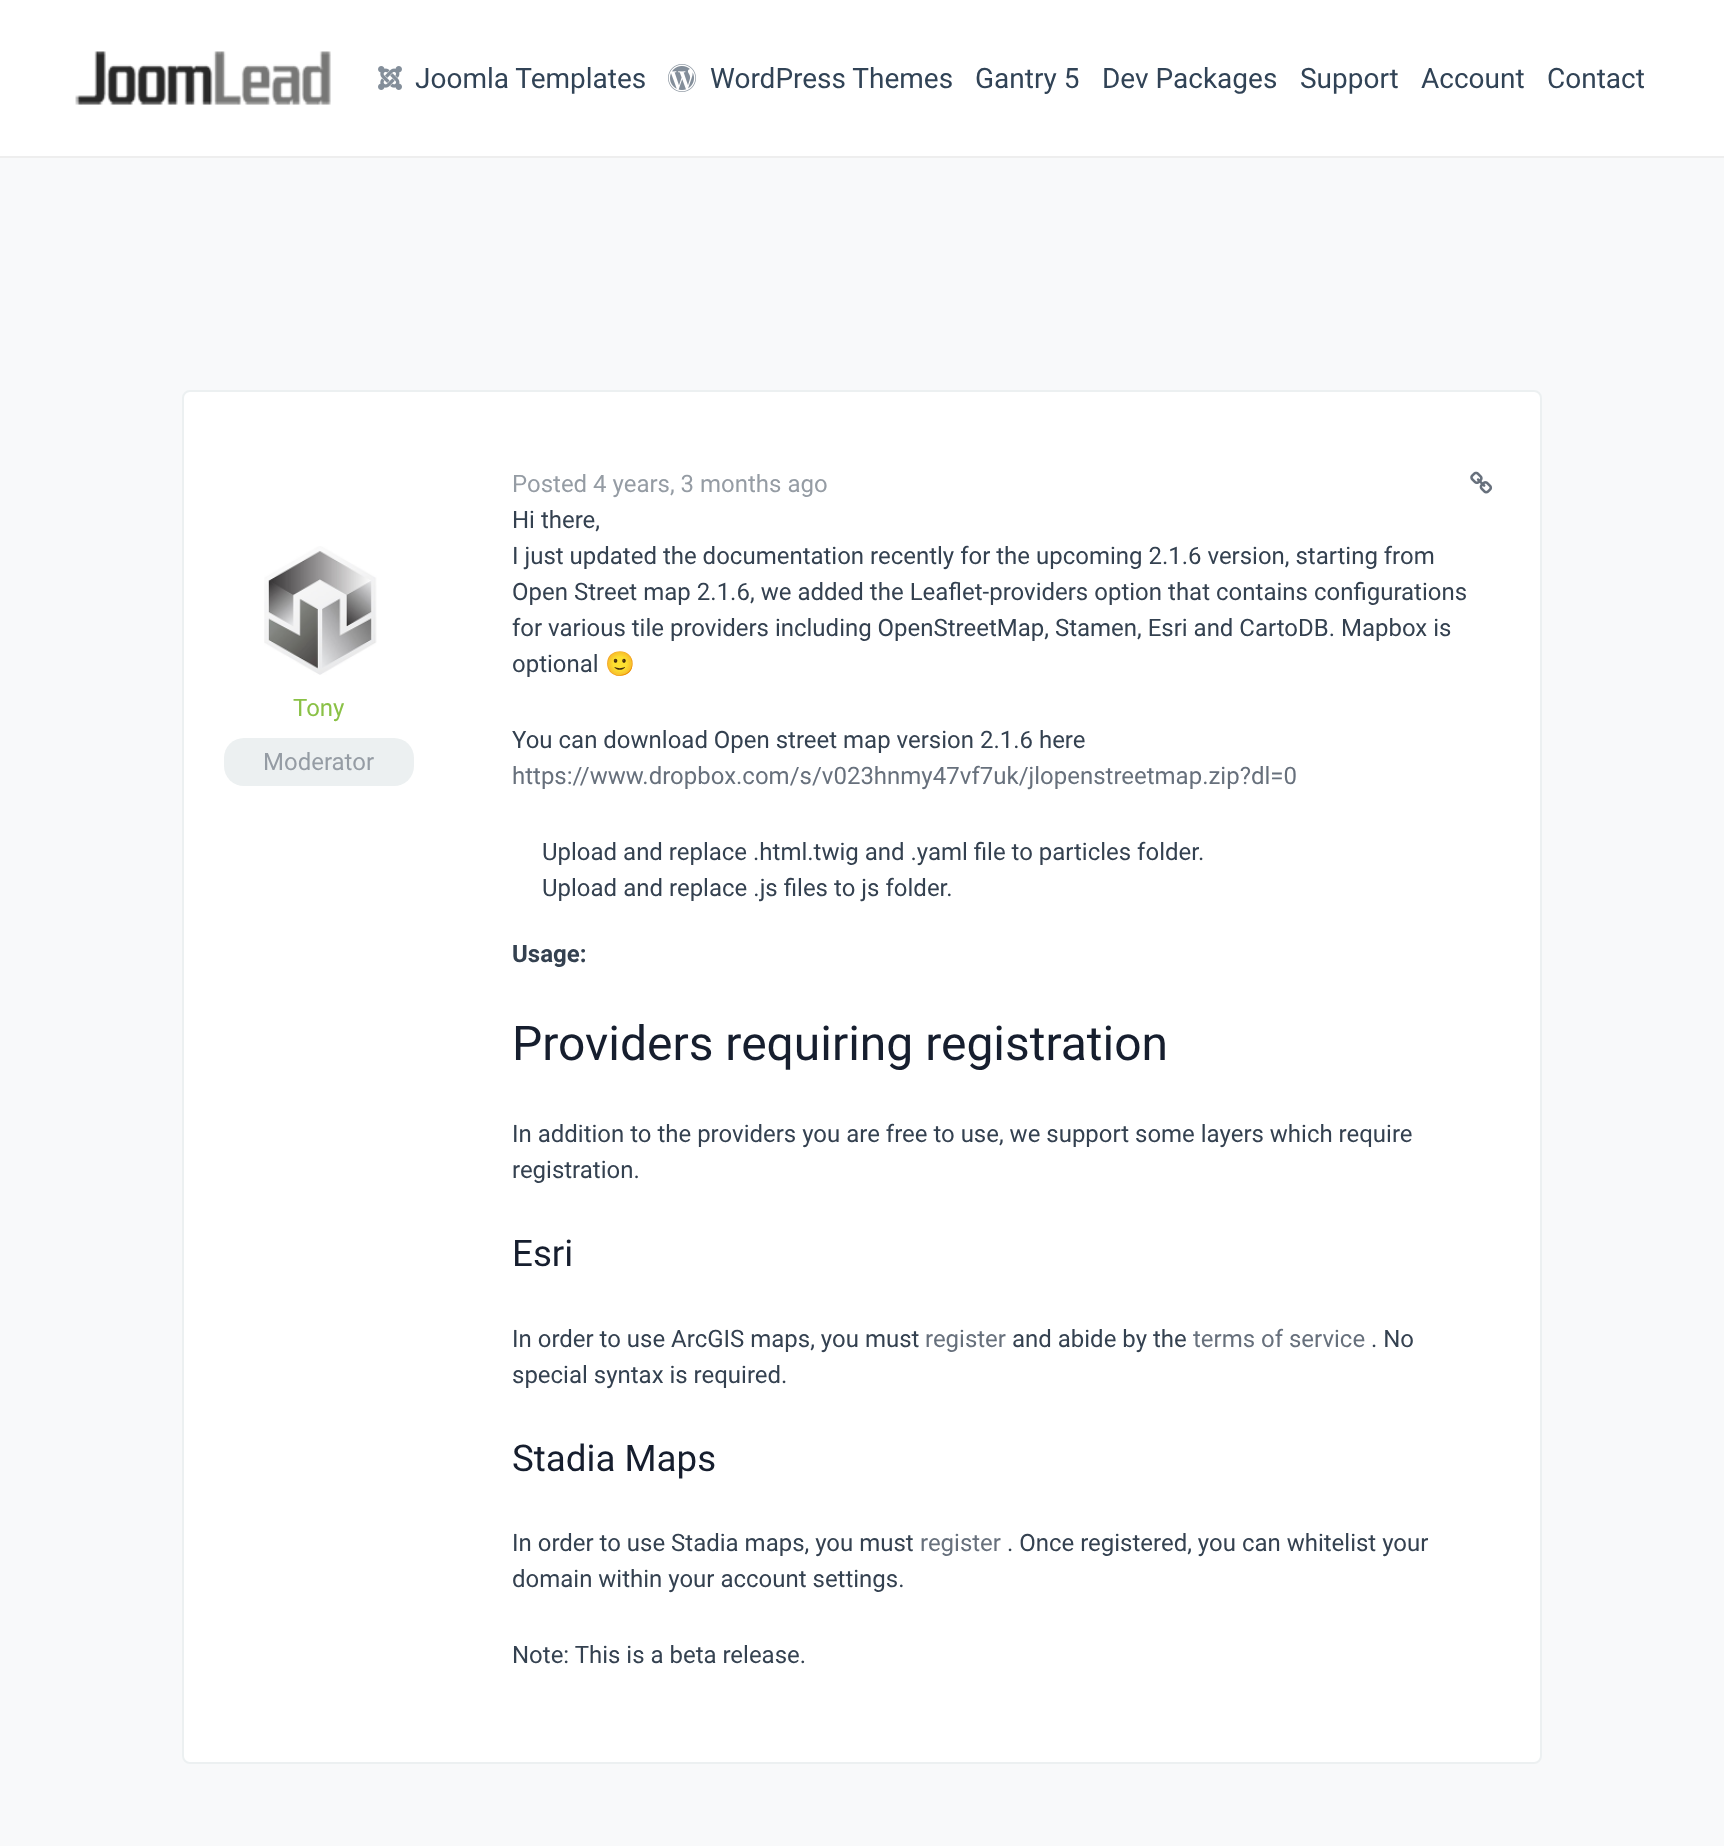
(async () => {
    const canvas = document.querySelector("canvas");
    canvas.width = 1724;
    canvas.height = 1846;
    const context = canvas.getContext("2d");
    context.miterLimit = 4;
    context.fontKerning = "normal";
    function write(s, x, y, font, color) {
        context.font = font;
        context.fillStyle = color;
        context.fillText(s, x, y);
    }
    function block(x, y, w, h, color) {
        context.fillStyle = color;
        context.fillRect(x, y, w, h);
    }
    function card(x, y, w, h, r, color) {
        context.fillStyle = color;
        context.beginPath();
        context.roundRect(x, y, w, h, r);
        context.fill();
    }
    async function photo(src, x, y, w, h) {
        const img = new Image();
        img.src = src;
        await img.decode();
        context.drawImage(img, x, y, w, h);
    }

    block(0, 0, 1724, 1846, "rgb(248, 249, 250)");
    block(0, 0, 1724, 156, "rgb(255, 255, 255)");
    block(0, 156, 1724, 2, "rgb(238, 238, 238)");
    await photo("media/1.png", 75, 51, 256, 54);
    await photo("media/2.png", 378, 66, 24, 24);
    write("Joomla Templates", 415, 88, "28px Roboto", "rgb(49, 67, 86)");
    await photo("media/3.png", 668, 64, 28, 28);
    write("WordPress Themes", 710, 88, "28px Roboto", "rgb(49, 67, 86)");
    write("Gantry 5", 975, 88, "28px Roboto", "rgb(49, 67, 86)");
    write("Dev Packages", 1102, 88, "28px Roboto", "rgb(49, 67, 86)");
    write("Support", 1300, 88, "28px Roboto", "rgb(49, 67, 86)");
    write("Account", 1421, 88, "28px Roboto", "rgb(49, 67, 86)");
    write("Contact", 1547, 88, "28px Roboto", "rgb(49, 67, 86)");
    context.fillStyle = "rgb(255, 255, 255)";
    context.beginPath();
    context.roundRect(183, 391, 1358, 1372, 7);
    context.fill();
    context.strokeStyle = "rgb(236, 240, 241)";
    context.lineWidth = 2;
    context.stroke();
    await photo("media/4.png", 264, 546, 113, 129);
    write("Tony", 293, 716, "24px Roboto", "rgb(138, 193, 70)");
    card(224, 738, 190, 48, 20, "rgb(236, 240, 241)");
    write("Moderator", 263, 770, "24px Roboto", "rgb(149, 156, 164)");
    write("Posted 4 years, 3 months ago", 512, 492, "24px Roboto", "rgb(149, 156, 164)");
    await photo("media/5.png", 1470, 471, 23, 23);
    write("Hi there,", 512, 528, "24px Roboto", "rgb(52, 65, 80)");
    write("I just updated the documentation recently for the upcoming 2.1.6 version, starting from", 512, 564, "24px Roboto", "rgb(52, 65, 80)");
    context.wordSpacing = "0.1px";
    write("Open Street map 2.1.6, we added the Leaflet-providers option that contains configurations", 512, 600, "24px Roboto", "rgb(52, 65, 80)");
    context.wordSpacing = "0px";
    write("for various tile providers including OpenStreetMap, Stamen, Esri and CartoDB. Mapbox is", 512, 636, "24px Roboto", "rgb(52, 65, 80)");
    write("optional", 512, 672, "24px Roboto", "rgb(52, 65, 80)");
    write("🙂", 605, 672, "24px Noto Color Emoji", "rgb(52, 65, 80)");
    write("You can download Open street map version 2.1.6 here", 512, 748, "24px Roboto", "rgb(52, 65, 80)");
    write("https://www.dropbox.com/s/v023hnmy47vf7uk/jlopenstreetmap.zip?dl=0", 512, 784, "24px Roboto", "rgb(103, 112, 124)");
    write("Upload and replace .html.twig and .yaml file to particles folder.", 542, 860, "24px Roboto", "rgb(52, 65, 80)");
    context.wordSpacing = "0.1px";
    write("Upload and replace .js files to js folder.", 542, 896, "24px Roboto", "rgb(52, 65, 80)");
    context.wordSpacing = "0px";
    write("Usage:", 512, 962, "bold 24px Roboto", "rgb(52, 65, 80)");
    write("Providers requiring registration", 512, 1060, "48px Roboto", "rgb(22, 30, 46)");
    write("In addition to the providers you are free to use, we support some layers which require", 512, 1142, "24px Roboto", "rgb(52, 65, 80)");
    write("registration.", 512, 1178, "24px Roboto", "rgb(52, 65, 80)");
    write("Esri", 512, 1266, "36.75px Roboto", "rgb(22, 30, 46)");
    write("In order to use ArcGIS maps, you must", 512, 1347, "24px Roboto", "rgb(52, 65, 80)");
    write("register", 925, 1347, "24px Roboto", "rgb(103, 112, 124)");
    write("and abide by the", 1012, 1347, "24px Roboto", "rgb(52, 65, 80)");
    write("terms of service", 1193, 1347, "24px Roboto", "rgb(103, 112, 124)");
    write(". No", 1371, 1347, "24px Roboto", "rgb(52, 65, 80)");
    write("special syntax is required.", 512, 1383, "24px Roboto", "rgb(52, 65, 80)");
    write("Stadia Maps", 512, 1471, "36.75px Roboto", "rgb(22, 30, 46)");
    write("In order to use Stadia maps, you must", 512, 1551, "24px Roboto", "rgb(52, 65, 80)");
    write("register", 920, 1551, "24px Roboto", "rgb(103, 112, 124)");
    write(". Once registered, you can whitelist your", 1007, 1551, "24px Roboto", "rgb(52, 65, 80)");
    write("domain within your account settings.", 512, 1587, "24px Roboto", "rgb(52, 65, 80)");
    write("Note: This is a beta release.", 512, 1663, "24px Roboto", "rgb(52, 65, 80)");
})();
